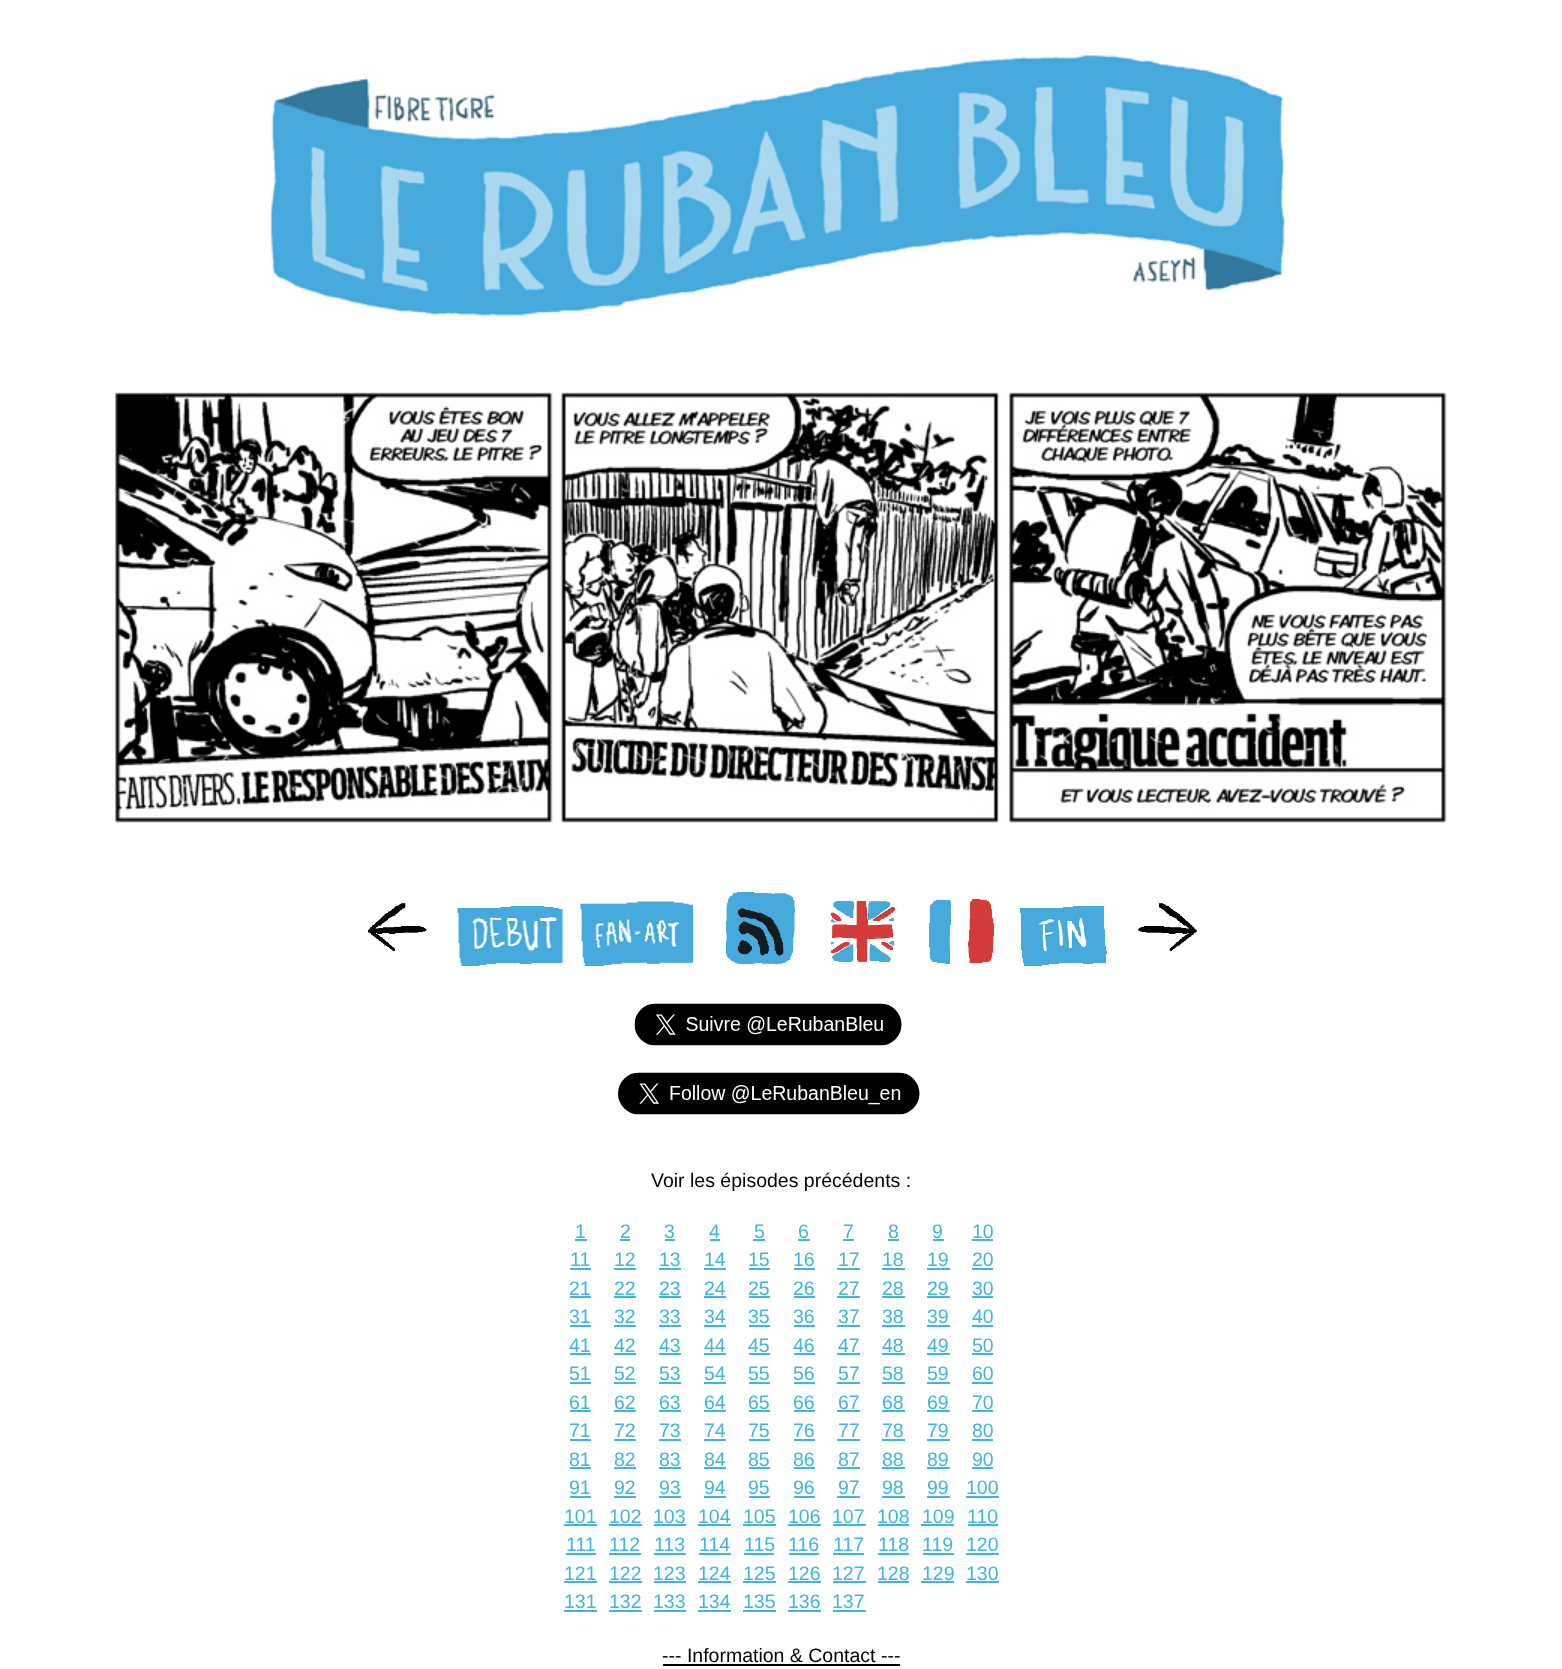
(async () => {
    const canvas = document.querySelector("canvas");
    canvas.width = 1562;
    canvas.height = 1669;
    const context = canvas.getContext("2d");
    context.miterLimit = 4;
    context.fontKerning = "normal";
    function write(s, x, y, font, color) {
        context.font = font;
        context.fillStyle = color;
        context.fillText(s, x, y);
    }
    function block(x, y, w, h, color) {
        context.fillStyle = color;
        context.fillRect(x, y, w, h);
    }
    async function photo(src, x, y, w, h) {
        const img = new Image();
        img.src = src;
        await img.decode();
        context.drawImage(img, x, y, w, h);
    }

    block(0, 0, 1562, 1669, "rgb(255, 255, 255)");
    await photo("media/1.png", 270, 55, 1015, 262);
    await photo("media/2.png", 115, 392, 1332, 431);
    await photo("media/3.png", 368, 903, 59, 48);
    await photo("media/4.png", 457, 906, 106, 60);
    await photo("media/5.png", 580, 901, 113, 65);
    await photo("media/6.png", 726, 892, 69, 73);
    await photo("media/7.png", 830, 901, 65, 61);
    await photo("media/8.png", 929, 899, 65, 65);
    await photo("media/9.png", 1020, 906, 87, 60);
    await photo("media/10.png", 1138, 903, 59, 48);
    await photo("media/11.png", 634, 1003, 268, 43);
    await photo("media/12.png", 618, 1072, 302, 43);
    write("Voir les épisodes précédents :", 651, 1187, "19.5px Liberation Sans", "rgb(0, 0, 0)");
    write("1", 575, 1238, "19.5px Liberation Sans", "rgb(64, 181, 225)");
    block(575, 1239, 12, 2, "rgb(64, 181, 225)");
    write("2", 620, 1238, "19.5px Liberation Sans", "rgb(64, 181, 225)");
    block(620, 1239, 10, 2, "rgb(64, 181, 225)");
    write("3", 664, 1238, "19.5px Liberation Sans", "rgb(64, 181, 225)");
    block(665, 1239, 10, 2, "rgb(64, 181, 225)");
    write("4", 709, 1238, "19.5px Liberation Sans", "rgb(64, 181, 225)");
    block(710, 1239, 10, 2, "rgb(64, 181, 225)");
    write("5", 754, 1238, "19.5px Liberation Sans", "rgb(64, 181, 225)");
    block(753, 1239, 12, 2, "rgb(64, 181, 225)");
    write("6", 798, 1238, "19.5px Liberation Sans", "rgb(64, 181, 225)");
    block(798, 1239, 12, 2, "rgb(64, 181, 225)");
    write("7", 843, 1238, "19.5px Liberation Sans", "rgb(64, 181, 225)");
    block(843, 1239, 11, 2, "rgb(64, 181, 225)");
    write("8", 888, 1238, "19.5px Liberation Sans", "rgb(64, 181, 225)");
    block(888, 1239, 11, 2, "rgb(64, 181, 225)");
    write("9", 932, 1238, "19.5px Liberation Sans", "rgb(64, 181, 225)");
    block(933, 1239, 11, 2, "rgb(64, 181, 225)");
    write("10", 972, 1238, "19.5px Liberation Sans", "rgb(64, 181, 225)");
    block(972, 1239, 21, 2, "rgb(64, 181, 225)");
    write("11", 570, 1266, "19.5px Liberation Sans", "rgb(64, 181, 225)");
    block(570, 1268, 21, 2, "rgb(64, 181, 225)");
    write("12", 614, 1266, "19.5px Liberation Sans", "rgb(64, 181, 225)");
    block(614, 1268, 22, 2, "rgb(64, 181, 225)");
    write("13", 659, 1266, "19.5px Liberation Sans", "rgb(64, 181, 225)");
    block(659, 1268, 22, 2, "rgb(64, 181, 225)");
    write("14", 704, 1266, "19.5px Liberation Sans", "rgb(64, 181, 225)");
    block(704, 1268, 22, 2, "rgb(64, 181, 225)");
    write("15", 748, 1266, "19.5px Liberation Sans", "rgb(64, 181, 225)");
    block(749, 1268, 21, 2, "rgb(64, 181, 225)");
    write("16", 793, 1266, "19.5px Liberation Sans", "rgb(64, 181, 225)");
    block(794, 1268, 21, 2, "rgb(64, 181, 225)");
    write("17", 838, 1266, "19.5px Liberation Sans", "rgb(64, 181, 225)");
    block(837, 1268, 23, 2, "rgb(64, 181, 225)");
    write("18", 882, 1266, "19.5px Liberation Sans", "rgb(64, 181, 225)");
    block(882, 1268, 23, 2, "rgb(64, 181, 225)");
    write("19", 927, 1266, "19.5px Liberation Sans", "rgb(64, 181, 225)");
    block(927, 1268, 23, 2, "rgb(64, 181, 225)");
    write("20", 972, 1266, "19.5px Liberation Sans", "rgb(64, 181, 225)");
    block(972, 1268, 21, 2, "rgb(64, 181, 225)");
    write("21", 569, 1295, "19.5px Liberation Sans", "rgb(64, 181, 225)");
    block(570, 1296, 21, 2, "rgb(64, 181, 225)");
    write("22", 614, 1295, "19.5px Liberation Sans", "rgb(64, 181, 225)");
    block(614, 1296, 22, 2, "rgb(64, 181, 225)");
    write("23", 659, 1295, "19.5px Liberation Sans", "rgb(64, 181, 225)");
    block(659, 1296, 22, 2, "rgb(64, 181, 225)");
    write("24", 704, 1295, "19.5px Liberation Sans", "rgb(64, 181, 225)");
    block(704, 1296, 22, 2, "rgb(64, 181, 225)");
    write("25", 748, 1295, "19.5px Liberation Sans", "rgb(64, 181, 225)");
    block(749, 1296, 21, 2, "rgb(64, 181, 225)");
    write("26", 793, 1295, "19.5px Liberation Sans", "rgb(64, 181, 225)");
    block(794, 1296, 21, 2, "rgb(64, 181, 225)");
    write("27", 838, 1295, "19.5px Liberation Sans", "rgb(64, 181, 225)");
    block(837, 1296, 23, 2, "rgb(64, 181, 225)");
    write("28", 882, 1295, "19.5px Liberation Sans", "rgb(64, 181, 225)");
    block(882, 1296, 23, 2, "rgb(64, 181, 225)");
    write("29", 927, 1295, "19.5px Liberation Sans", "rgb(64, 181, 225)");
    block(927, 1296, 23, 2, "rgb(64, 181, 225)");
    write("30", 972, 1295, "19.5px Liberation Sans", "rgb(64, 181, 225)");
    block(972, 1296, 21, 2, "rgb(64, 181, 225)");
    write("31", 569, 1323, "19.5px Liberation Sans", "rgb(64, 181, 225)");
    block(570, 1325, 21, 2, "rgb(64, 181, 225)");
    write("32", 614, 1323, "19.5px Liberation Sans", "rgb(64, 181, 225)");
    block(614, 1325, 22, 2, "rgb(64, 181, 225)");
    write("33", 659, 1323, "19.5px Liberation Sans", "rgb(64, 181, 225)");
    block(659, 1325, 22, 2, "rgb(64, 181, 225)");
    write("34", 704, 1323, "19.5px Liberation Sans", "rgb(64, 181, 225)");
    block(704, 1325, 22, 2, "rgb(64, 181, 225)");
    write("35", 748, 1323, "19.5px Liberation Sans", "rgb(64, 181, 225)");
    block(749, 1325, 21, 2, "rgb(64, 181, 225)");
    write("36", 793, 1323, "19.5px Liberation Sans", "rgb(64, 181, 225)");
    block(794, 1325, 21, 2, "rgb(64, 181, 225)");
    write("37", 838, 1323, "19.5px Liberation Sans", "rgb(64, 181, 225)");
    block(837, 1325, 23, 2, "rgb(64, 181, 225)");
    write("38", 882, 1323, "19.5px Liberation Sans", "rgb(64, 181, 225)");
    block(882, 1325, 23, 2, "rgb(64, 181, 225)");
    write("39", 927, 1323, "19.5px Liberation Sans", "rgb(64, 181, 225)");
    block(927, 1325, 23, 2, "rgb(64, 181, 225)");
    write("40", 972, 1323, "19.5px Liberation Sans", "rgb(64, 181, 225)");
    block(972, 1325, 21, 2, "rgb(64, 181, 225)");
    write("41", 569, 1352, "19.5px Liberation Sans", "rgb(64, 181, 225)");
    block(570, 1353, 21, 2, "rgb(64, 181, 225)");
    write("42", 614, 1352, "19.5px Liberation Sans", "rgb(64, 181, 225)");
    block(614, 1353, 22, 2, "rgb(64, 181, 225)");
    write("43", 659, 1352, "19.5px Liberation Sans", "rgb(64, 181, 225)");
    block(659, 1353, 22, 2, "rgb(64, 181, 225)");
    write("44", 704, 1352, "19.5px Liberation Sans", "rgb(64, 181, 225)");
    block(704, 1353, 22, 2, "rgb(64, 181, 225)");
    write("45", 748, 1352, "19.5px Liberation Sans", "rgb(64, 181, 225)");
    block(749, 1353, 21, 2, "rgb(64, 181, 225)");
    write("46", 793, 1352, "19.5px Liberation Sans", "rgb(64, 181, 225)");
    block(794, 1353, 21, 2, "rgb(64, 181, 225)");
    write("47", 838, 1352, "19.5px Liberation Sans", "rgb(64, 181, 225)");
    block(837, 1353, 23, 2, "rgb(64, 181, 225)");
    write("48", 882, 1352, "19.5px Liberation Sans", "rgb(64, 181, 225)");
    block(882, 1353, 23, 2, "rgb(64, 181, 225)");
    write("49", 927, 1352, "19.5px Liberation Sans", "rgb(64, 181, 225)");
    block(927, 1353, 23, 2, "rgb(64, 181, 225)");
    write("50", 972, 1352, "19.5px Liberation Sans", "rgb(64, 181, 225)");
    block(972, 1353, 21, 2, "rgb(64, 181, 225)");
    write("51", 569, 1380, "19.5px Liberation Sans", "rgb(64, 181, 225)");
    block(570, 1382, 21, 2, "rgb(64, 181, 225)");
    write("52", 614, 1380, "19.5px Liberation Sans", "rgb(64, 181, 225)");
    block(614, 1382, 22, 2, "rgb(64, 181, 225)");
    write("53", 659, 1380, "19.5px Liberation Sans", "rgb(64, 181, 225)");
    block(659, 1382, 22, 2, "rgb(64, 181, 225)");
    write("54", 704, 1380, "19.5px Liberation Sans", "rgb(64, 181, 225)");
    block(704, 1382, 22, 2, "rgb(64, 181, 225)");
    write("55", 748, 1380, "19.5px Liberation Sans", "rgb(64, 181, 225)");
    block(749, 1382, 21, 2, "rgb(64, 181, 225)");
    write("56", 793, 1380, "19.5px Liberation Sans", "rgb(64, 181, 225)");
    block(794, 1382, 21, 2, "rgb(64, 181, 225)");
    write("57", 838, 1380, "19.5px Liberation Sans", "rgb(64, 181, 225)");
    block(837, 1382, 23, 2, "rgb(64, 181, 225)");
    write("58", 882, 1380, "19.5px Liberation Sans", "rgb(64, 181, 225)");
    block(882, 1382, 23, 2, "rgb(64, 181, 225)");
    write("59", 927, 1380, "19.5px Liberation Sans", "rgb(64, 181, 225)");
    block(927, 1382, 23, 2, "rgb(64, 181, 225)");
    write("60", 972, 1380, "19.5px Liberation Sans", "rgb(64, 181, 225)");
    block(972, 1382, 21, 2, "rgb(64, 181, 225)");
    write("61", 569, 1409, "19.5px Liberation Sans", "rgb(64, 181, 225)");
    block(570, 1410, 21, 2, "rgb(64, 181, 225)");
    write("62", 614, 1409, "19.5px Liberation Sans", "rgb(64, 181, 225)");
    block(614, 1410, 22, 2, "rgb(64, 181, 225)");
    write("63", 659, 1409, "19.5px Liberation Sans", "rgb(64, 181, 225)");
    block(659, 1410, 22, 2, "rgb(64, 181, 225)");
    write("64", 704, 1409, "19.5px Liberation Sans", "rgb(64, 181, 225)");
    block(704, 1410, 22, 2, "rgb(64, 181, 225)");
    write("65", 748, 1409, "19.5px Liberation Sans", "rgb(64, 181, 225)");
    block(749, 1410, 21, 2, "rgb(64, 181, 225)");
    write("66", 793, 1409, "19.5px Liberation Sans", "rgb(64, 181, 225)");
    block(794, 1410, 21, 2, "rgb(64, 181, 225)");
    write("67", 838, 1409, "19.5px Liberation Sans", "rgb(64, 181, 225)");
    block(837, 1410, 23, 2, "rgb(64, 181, 225)");
    write("68", 882, 1409, "19.5px Liberation Sans", "rgb(64, 181, 225)");
    block(882, 1410, 23, 2, "rgb(64, 181, 225)");
    write("69", 927, 1409, "19.5px Liberation Sans", "rgb(64, 181, 225)");
    block(927, 1410, 23, 2, "rgb(64, 181, 225)");
    write("70", 972, 1409, "19.5px Liberation Sans", "rgb(64, 181, 225)");
    block(972, 1410, 21, 2, "rgb(64, 181, 225)");
    write("71", 569, 1437, "19.5px Liberation Sans", "rgb(64, 181, 225)");
    block(570, 1439, 21, 2, "rgb(64, 181, 225)");
    write("72", 614, 1437, "19.5px Liberation Sans", "rgb(64, 181, 225)");
    block(614, 1439, 22, 2, "rgb(64, 181, 225)");
    write("73", 659, 1437, "19.5px Liberation Sans", "rgb(64, 181, 225)");
    block(659, 1439, 22, 2, "rgb(64, 181, 225)");
    write("74", 704, 1437, "19.5px Liberation Sans", "rgb(64, 181, 225)");
    block(704, 1439, 22, 2, "rgb(64, 181, 225)");
    write("75", 748, 1437, "19.5px Liberation Sans", "rgb(64, 181, 225)");
    block(749, 1439, 21, 2, "rgb(64, 181, 225)");
    write("76", 793, 1437, "19.5px Liberation Sans", "rgb(64, 181, 225)");
    block(794, 1439, 21, 2, "rgb(64, 181, 225)");
    write("77", 838, 1437, "19.5px Liberation Sans", "rgb(64, 181, 225)");
    block(837, 1439, 23, 2, "rgb(64, 181, 225)");
    write("78", 882, 1437, "19.5px Liberation Sans", "rgb(64, 181, 225)");
    block(882, 1439, 23, 2, "rgb(64, 181, 225)");
    write("79", 927, 1437, "19.5px Liberation Sans", "rgb(64, 181, 225)");
    block(927, 1439, 23, 2, "rgb(64, 181, 225)");
    write("80", 972, 1437, "19.5px Liberation Sans", "rgb(64, 181, 225)");
    block(972, 1439, 21, 2, "rgb(64, 181, 225)");
    write("81", 569, 1466, "19.5px Liberation Sans", "rgb(64, 181, 225)");
    block(570, 1467, 21, 2, "rgb(64, 181, 225)");
    write("82", 614, 1466, "19.5px Liberation Sans", "rgb(64, 181, 225)");
    block(614, 1467, 22, 2, "rgb(64, 181, 225)");
    write("83", 659, 1466, "19.5px Liberation Sans", "rgb(64, 181, 225)");
    block(659, 1467, 22, 2, "rgb(64, 181, 225)");
    write("84", 704, 1466, "19.5px Liberation Sans", "rgb(64, 181, 225)");
    block(704, 1467, 22, 2, "rgb(64, 181, 225)");
    write("85", 748, 1466, "19.5px Liberation Sans", "rgb(64, 181, 225)");
    block(749, 1467, 21, 2, "rgb(64, 181, 225)");
    write("86", 793, 1466, "19.5px Liberation Sans", "rgb(64, 181, 225)");
    block(794, 1467, 21, 2, "rgb(64, 181, 225)");
    write("87", 838, 1466, "19.5px Liberation Sans", "rgb(64, 181, 225)");
    block(837, 1467, 23, 2, "rgb(64, 181, 225)");
    write("88", 882, 1466, "19.5px Liberation Sans", "rgb(64, 181, 225)");
    block(882, 1467, 23, 2, "rgb(64, 181, 225)");
    write("89", 927, 1466, "19.5px Liberation Sans", "rgb(64, 181, 225)");
    block(927, 1467, 23, 2, "rgb(64, 181, 225)");
    write("90", 972, 1466, "19.5px Liberation Sans", "rgb(64, 181, 225)");
    block(972, 1467, 21, 2, "rgb(64, 181, 225)");
    write("91", 569, 1494, "19.5px Liberation Sans", "rgb(64, 181, 225)");
    block(570, 1496, 21, 2, "rgb(64, 181, 225)");
    write("92", 614, 1494, "19.5px Liberation Sans", "rgb(64, 181, 225)");
    block(614, 1496, 22, 2, "rgb(64, 181, 225)");
    write("93", 659, 1494, "19.5px Liberation Sans", "rgb(64, 181, 225)");
    block(659, 1496, 22, 2, "rgb(64, 181, 225)");
    write("94", 704, 1494, "19.5px Liberation Sans", "rgb(64, 181, 225)");
    block(704, 1496, 22, 2, "rgb(64, 181, 225)");
    write("95", 748, 1494, "19.5px Liberation Sans", "rgb(64, 181, 225)");
    block(749, 1496, 21, 2, "rgb(64, 181, 225)");
    write("96", 793, 1494, "19.5px Liberation Sans", "rgb(64, 181, 225)");
    block(794, 1496, 21, 2, "rgb(64, 181, 225)");
    write("97", 838, 1494, "19.5px Liberation Sans", "rgb(64, 181, 225)");
    block(837, 1496, 23, 2, "rgb(64, 181, 225)");
    write("98", 882, 1494, "19.5px Liberation Sans", "rgb(64, 181, 225)");
    block(882, 1496, 23, 2, "rgb(64, 181, 225)");
    write("99", 927, 1494, "19.5px Liberation Sans", "rgb(64, 181, 225)");
    block(927, 1496, 23, 2, "rgb(64, 181, 225)");
    write("100", 966, 1494, "19.5px Liberation Sans", "rgb(64, 181, 225)");
    block(966, 1496, 33, 2, "rgb(64, 181, 225)");
    write("101", 564, 1523, "19.5px Liberation Sans", "rgb(64, 181, 225)");
    block(564, 1524, 33, 2, "rgb(64, 181, 225)");
    write("102", 609, 1523, "19.5px Liberation Sans", "rgb(64, 181, 225)");
    block(609, 1524, 33, 2, "rgb(64, 181, 225)");
    write("103", 653, 1523, "19.5px Liberation Sans", "rgb(64, 181, 225)");
    block(654, 1524, 32, 2, "rgb(64, 181, 225)");
    write("104", 698, 1523, "19.5px Liberation Sans", "rgb(64, 181, 225)");
    block(698, 1524, 33, 2, "rgb(64, 181, 225)");
    write("105", 743, 1523, "19.5px Liberation Sans", "rgb(64, 181, 225)");
    block(743, 1524, 33, 2, "rgb(64, 181, 225)");
    write("106", 788, 1523, "19.5px Liberation Sans", "rgb(64, 181, 225)");
    block(788, 1524, 33, 2, "rgb(64, 181, 225)");
    write("107", 832, 1523, "19.5px Liberation Sans", "rgb(64, 181, 225)");
    block(833, 1524, 33, 2, "rgb(64, 181, 225)");
    write("108", 877, 1523, "19.5px Liberation Sans", "rgb(64, 181, 225)");
    block(878, 1524, 31, 2, "rgb(64, 181, 225)");
    write("109", 922, 1523, "19.5px Liberation Sans", "rgb(64, 181, 225)");
    block(921, 1524, 33, 2, "rgb(64, 181, 225)");
    write("110", 967, 1523, "19.5px Liberation Sans", "rgb(64, 181, 225)");
    block(968, 1524, 30, 2, "rgb(64, 181, 225)");
    write("111", 566, 1551, "19.5px Liberation Sans", "rgb(64, 181, 225)");
    block(566, 1553, 30, 2, "rgb(64, 181, 225)");
    write("112", 609, 1551, "19.5px Liberation Sans", "rgb(64, 181, 225)");
    block(609, 1553, 32, 2, "rgb(64, 181, 225)");
    write("113", 654, 1551, "19.5px Liberation Sans", "rgb(64, 181, 225)");
    block(654, 1553, 32, 2, "rgb(64, 181, 225)");
    write("114", 699, 1551, "19.5px Liberation Sans", "rgb(64, 181, 225)");
    block(699, 1553, 32, 2, "rgb(64, 181, 225)");
    write("115", 744, 1551, "19.5px Liberation Sans", "rgb(64, 181, 225)");
    block(744, 1553, 30, 2, "rgb(64, 181, 225)");
    write("116", 788, 1551, "19.5px Liberation Sans", "rgb(64, 181, 225)");
    block(789, 1553, 30, 2, "rgb(64, 181, 225)");
    write("117", 833, 1551, "19.5px Liberation Sans", "rgb(64, 181, 225)");
    block(833, 1553, 31, 2, "rgb(64, 181, 225)");
    write("118", 878, 1551, "19.5px Liberation Sans", "rgb(64, 181, 225)");
    block(878, 1553, 31, 2, "rgb(64, 181, 225)");
    write("119", 922, 1551, "19.5px Liberation Sans", "rgb(64, 181, 225)");
    block(923, 1553, 31, 2, "rgb(64, 181, 225)");
    write("120", 966, 1551, "19.5px Liberation Sans", "rgb(64, 181, 225)");
    block(966, 1553, 33, 2, "rgb(64, 181, 225)");
    write("121", 564, 1580, "19.5px Liberation Sans", "rgb(64, 181, 225)");
    block(564, 1581, 33, 2, "rgb(64, 181, 225)");
    write("122", 609, 1580, "19.5px Liberation Sans", "rgb(64, 181, 225)");
    block(609, 1581, 33, 2, "rgb(64, 181, 225)");
    write("123", 653, 1580, "19.5px Liberation Sans", "rgb(64, 181, 225)");
    block(654, 1581, 32, 2, "rgb(64, 181, 225)");
    write("124", 698, 1580, "19.5px Liberation Sans", "rgb(64, 181, 225)");
    block(698, 1581, 33, 2, "rgb(64, 181, 225)");
    write("125", 743, 1580, "19.5px Liberation Sans", "rgb(64, 181, 225)");
    block(743, 1581, 33, 2, "rgb(64, 181, 225)");
    write("126", 788, 1580, "19.5px Liberation Sans", "rgb(64, 181, 225)");
    block(788, 1581, 33, 2, "rgb(64, 181, 225)");
    write("127", 832, 1580, "19.5px Liberation Sans", "rgb(64, 181, 225)");
    block(833, 1581, 33, 2, "rgb(64, 181, 225)");
    write("128", 877, 1580, "19.5px Liberation Sans", "rgb(64, 181, 225)");
    block(878, 1581, 31, 2, "rgb(64, 181, 225)");
    write("129", 922, 1580, "19.5px Liberation Sans", "rgb(64, 181, 225)");
    block(921, 1581, 33, 2, "rgb(64, 181, 225)");
    write("130", 966, 1580, "19.5px Liberation Sans", "rgb(64, 181, 225)");
    block(966, 1581, 33, 2, "rgb(64, 181, 225)");
    write("131", 564, 1608, "19.5px Liberation Sans", "rgb(64, 181, 225)");
    block(564, 1610, 33, 2, "rgb(64, 181, 225)");
    write("132", 609, 1608, "19.5px Liberation Sans", "rgb(64, 181, 225)");
    block(609, 1610, 33, 2, "rgb(64, 181, 225)");
    write("133", 653, 1608, "19.5px Liberation Sans", "rgb(64, 181, 225)");
    block(654, 1610, 32, 2, "rgb(64, 181, 225)");
    write("134", 698, 1608, "19.5px Liberation Sans", "rgb(64, 181, 225)");
    block(698, 1610, 33, 2, "rgb(64, 181, 225)");
    write("135", 743, 1608, "19.5px Liberation Sans", "rgb(64, 181, 225)");
    block(743, 1610, 33, 2, "rgb(64, 181, 225)");
    write("136", 788, 1608, "19.5px Liberation Sans", "rgb(64, 181, 225)");
    block(788, 1610, 33, 2, "rgb(64, 181, 225)");
    write("137", 832, 1608, "19.5px Liberation Sans", "rgb(64, 181, 225)");
    block(833, 1610, 33, 2, "rgb(64, 181, 225)");
    write("--- Information & Contact ---", 662, 1662, "19.5px Liberation Sans", "rgb(0, 0, 0)");
    block(663, 1664, 237, 2, "rgb(0, 0, 0)");
})();
